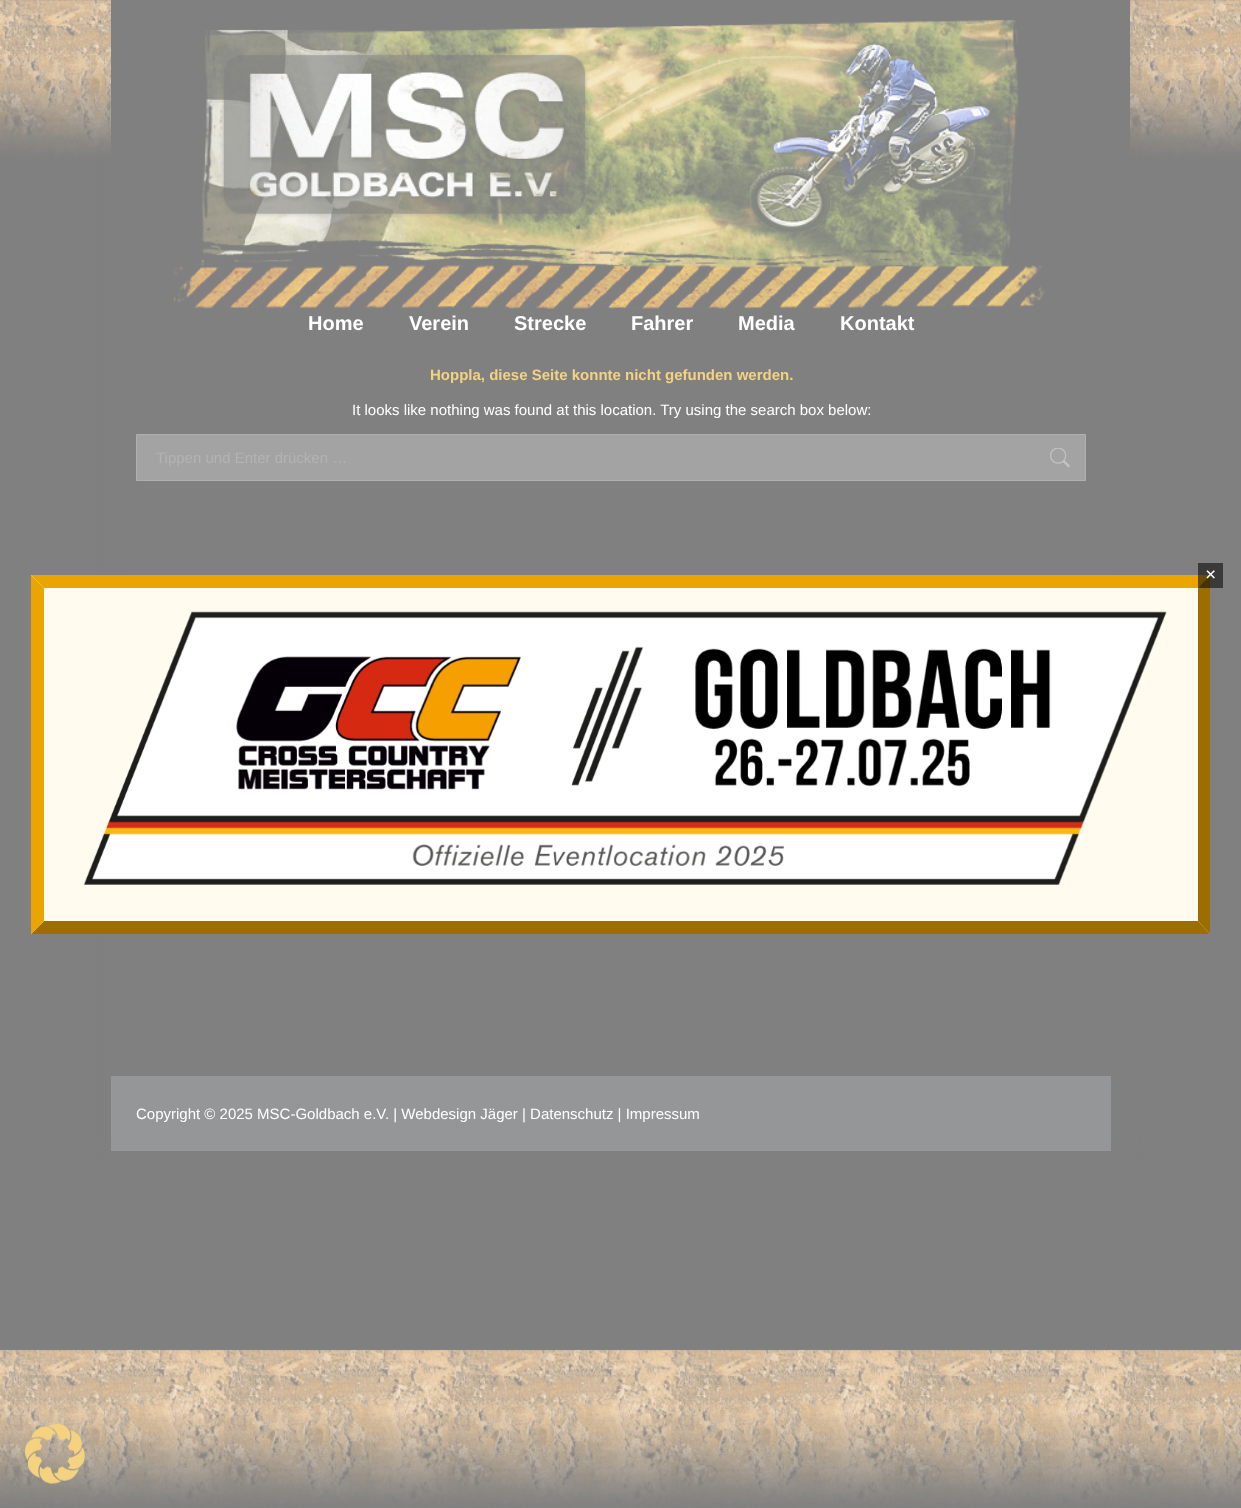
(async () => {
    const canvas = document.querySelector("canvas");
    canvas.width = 1241;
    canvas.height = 1508;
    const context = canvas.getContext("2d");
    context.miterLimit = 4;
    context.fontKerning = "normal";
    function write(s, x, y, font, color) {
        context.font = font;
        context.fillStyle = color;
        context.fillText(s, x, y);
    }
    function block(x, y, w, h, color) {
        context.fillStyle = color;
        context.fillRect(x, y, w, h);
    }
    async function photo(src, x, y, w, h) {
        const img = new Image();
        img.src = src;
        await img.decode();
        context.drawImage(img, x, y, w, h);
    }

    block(0, 0, 1241, 1508, "rgb(255, 255, 255)");
    await photo("media/1.png", 0, 0, 1241, 1508);
    context.fillStyle = "rgba(128, 128, 128, 0.15)";
    context.filter = "blur(7.5px)";
    context.beginPath();
    context.rect(111, 0, 1019, 1151);
    context.fill();
    context.filter = "none";
    block(111, 0, 1019, 157, "rgb(128, 128, 128)");
    await photo("media/2.png", 173, 19, 872, 290);
    write("Home", 308, 330, "bold 20px Liberation Sans", "rgb(255, 255, 255)");
    write("Verein", 409, 330, "bold 20px Liberation Sans", "rgb(255, 255, 255)");
    write("Strecke", 514, 330, "bold 20px Liberation Sans", "rgb(255, 255, 255)");
    write("Fahrer", 631, 330, "bold 20px Liberation Sans", "rgb(255, 255, 255)");
    write("Media", 738, 330, "bold 20px Liberation Sans", "rgb(255, 255, 255)");
    write("Kontakt", 840, 330, "bold 20px Liberation Sans", "rgb(255, 255, 255)");
    write("Hoppla, diese Seite konnte nicht gefunden werden.", 430, 380, "bold 15px Liberation Sans", "rgb(245, 210, 128)");
    write("It looks like nothing was found at this location. Try using the search box below:", 352, 415, "15px Liberation Sans", "rgb(255, 255, 255)");
    context.fillStyle = "rgb(163, 163, 163)";
    context.beginPath();
    context.rect(136.5, 434.5, 949, 46);
    context.fill();
    context.strokeStyle = "rgb(176, 176, 176)";
    context.stroke();
    context.save();
    context.beginPath();
    context.rect(156, 449, 892, 17);
    context.clip();
    write("Tippen und Enter drücken …", 156, 463, "15px Liberation Sans", "rgb(179, 179, 181)");
    context.restore();
    await photo("media/3.png", 1050, 448, 20, 20);
    block(111, 1076, 1000, 75, "rgb(149, 150, 152)");
    write("Copyright © 2025 MSC-Goldbach e.V. | Webdesign Jäger | Datenschutz | Impressum", 136, 1119, "15px Liberation Sans", "rgb(255, 255, 255)");
    block(31, 575, 1179, 359, "rgb(255, 251, 239)");
    context.fillStyle = "rgb(234, 165, 0)";
    context.beginPath();
    context.moveTo(31, 575);
    context.lineTo(1210, 575);
    context.lineTo(1198, 588);
    context.lineTo(44, 588);
    context.closePath();
    context.fill();
    context.fillStyle = "rgb(156, 110, 0)";
    context.beginPath();
    context.moveTo(1210, 575);
    context.lineTo(1210, 934);
    context.lineTo(1198, 921);
    context.lineTo(1198, 588);
    context.closePath();
    context.fill();
    context.beginPath();
    context.moveTo(1210, 934);
    context.lineTo(31, 934);
    context.lineTo(44, 921);
    context.lineTo(1198, 921);
    context.closePath();
    context.fill();
    context.fillStyle = "rgb(234, 165, 0)";
    context.beginPath();
    context.moveTo(31, 934);
    context.lineTo(31, 575);
    context.lineTo(44, 588);
    context.lineTo(44, 921);
    context.closePath();
    context.fill();
    block(1198, 563, 25, 25, "rgba(0, 0, 0, 0.55)");
    write("×", 1205, 581, "bold 20px Liberation Serif", "rgb(255, 255, 255)");
    await photo("media/4.png", 83, 611, 1084, 274);
    await photo("media/5.png", 22, 1419, 66, 65);
})();
